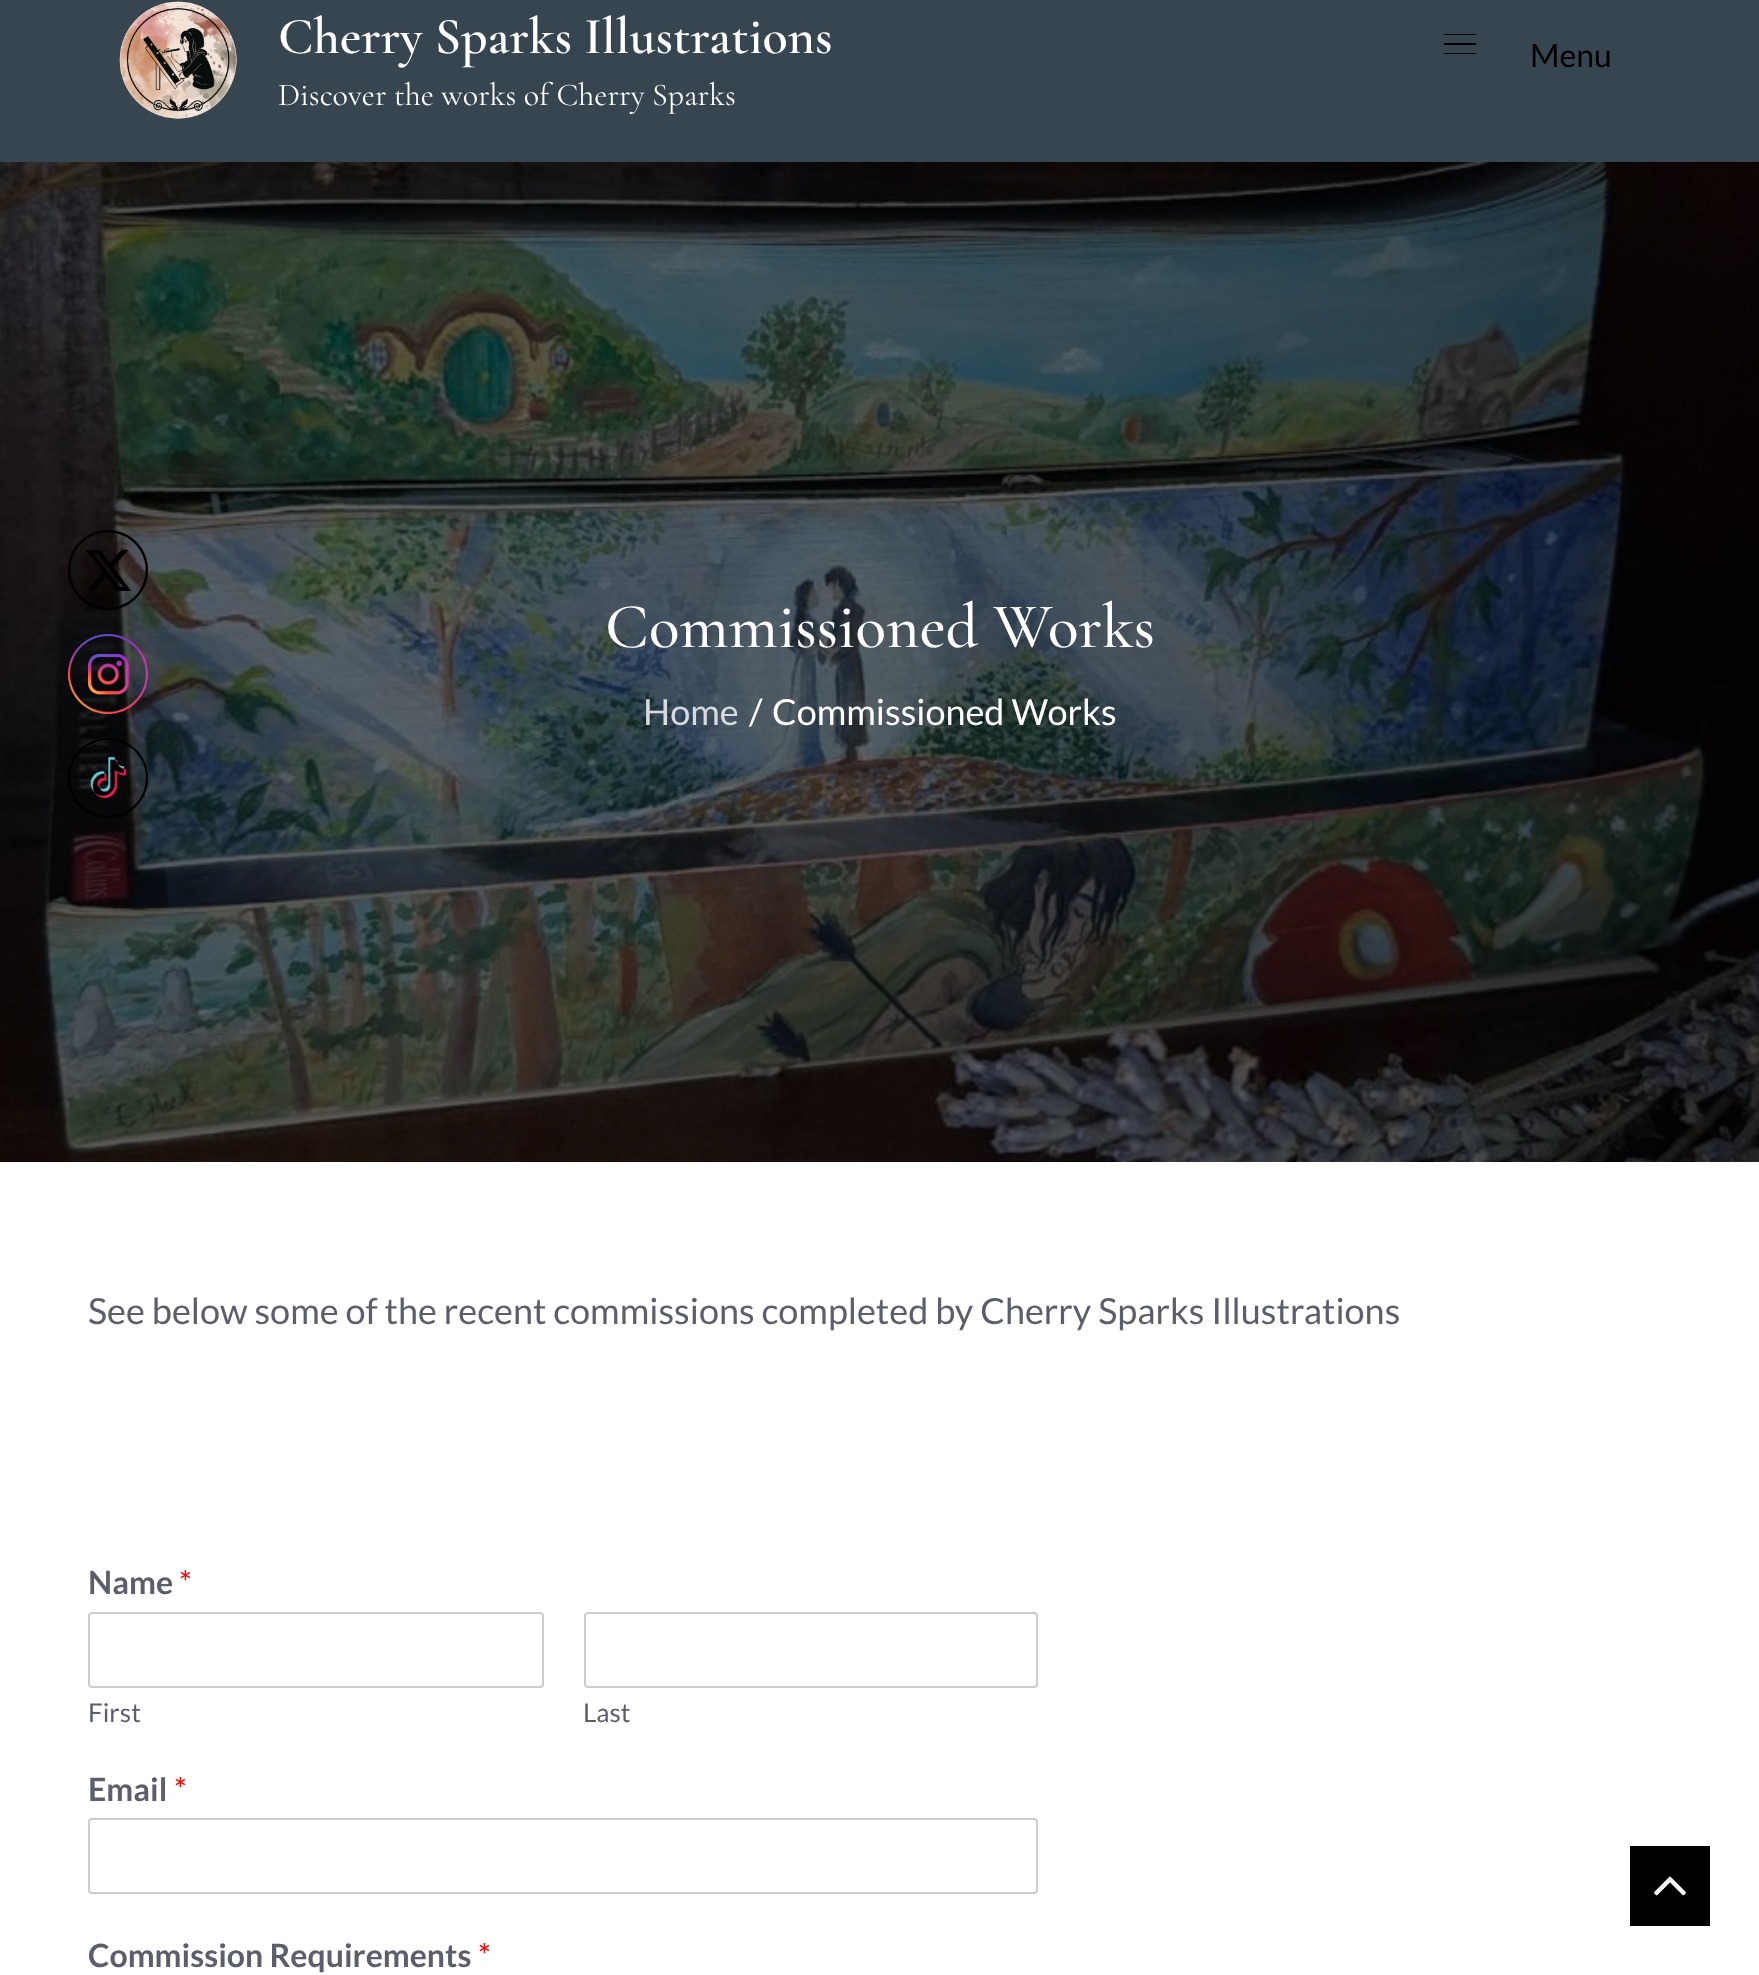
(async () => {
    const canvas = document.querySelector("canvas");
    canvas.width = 1759;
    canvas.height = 1975;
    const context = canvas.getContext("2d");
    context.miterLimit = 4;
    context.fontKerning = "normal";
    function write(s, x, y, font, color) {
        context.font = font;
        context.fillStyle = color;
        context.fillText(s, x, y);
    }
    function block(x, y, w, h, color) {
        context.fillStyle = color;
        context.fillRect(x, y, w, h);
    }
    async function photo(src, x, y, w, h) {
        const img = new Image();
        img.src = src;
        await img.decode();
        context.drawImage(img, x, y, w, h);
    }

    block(0, 0, 1759, 1975, "rgb(255, 255, 255)");
    block(0, 0, 1759, 162, "rgb(54, 69, 79)");
    await photo("media/1.png", 119, 1, 118, 118);
    write("Cherry Sparks Illustrations", 278, 53, "600 52px Cormorant Garamond", "rgb(255, 255, 255)");
    write("Discover the works of Cherry Sparks", 278, 105, "32px Cormorant Garamond", "rgb(255, 255, 255)");
    block(1444, 34, 32, 1, "rgb(0, 0, 0)");
    block(1444, 43, 32, 2, "rgb(0, 0, 0)");
    block(1444, 53, 32, 1, "rgb(0, 0, 0)");
    write("Menu", 1530, 67, "32px Lato", "rgb(0, 0, 0)");
    await photo("media/2.png", 0, 162, 1759, 1000);
    write("Commissioned Works", 605, 647, "500 64px Cormorant Garamond", "rgb(255, 255, 255)");
    write("Home", 643, 725, "36px Lato", "rgb(215, 219, 222)");
    write("/", 749, 725, "36px Lato", "rgb(255, 255, 255)");
    write("Commissioned Works", 772, 725, "36px Lato", "rgb(255, 255, 255)");
    write("See below some of the recent commissions completed by Cherry Sparks Illustrations", 88, 1324, "36px Lato", "rgb(92, 95, 107)");
    write("Name", 88, 1594, "bold 32px Lato", "rgb(92, 95, 107)");
    write("*", 179, 1594, "32px Lato", "rgb(255, 0, 0)");
    context.beginPath();
    context.roundRect(89, 1613, 454, 74, 3);
    context.strokeStyle = "rgb(204, 204, 204)";
    context.lineWidth = 2;
    context.stroke();
    write("First", 88, 1722, "26px Lato", "rgb(92, 95, 107)");
    context.beginPath();
    context.roundRect(585, 1613, 452, 74, 3);
    context.stroke();
    write("Last", 583, 1722, "26px Lato", "rgb(92, 95, 107)");
    write("Email", 88, 1801, "bold 32px Lato", "rgb(92, 95, 107)");
    write("*", 174, 1801, "32px Lato", "rgb(255, 0, 0)");
    context.beginPath();
    context.roundRect(89, 1819, 948, 74, 3);
    context.stroke();
    write("Commission Requirements", 88, 1967, "bold 32px Lato", "rgb(92, 95, 107)");
    write("*", 478, 1967, "32px Lato", "rgb(255, 0, 0)");
    block(1630, 1846, 80, 80, "rgb(0, 0, 0)");
    await photo("media/3.png", 1654, 1876, 32, 20);
    await photo("media/4.png", 68, 530, 80, 80);
    await photo("media/5.png", 68, 634, 80, 80);
    await photo("media/6.png", 68, 738, 80, 80);
})();
